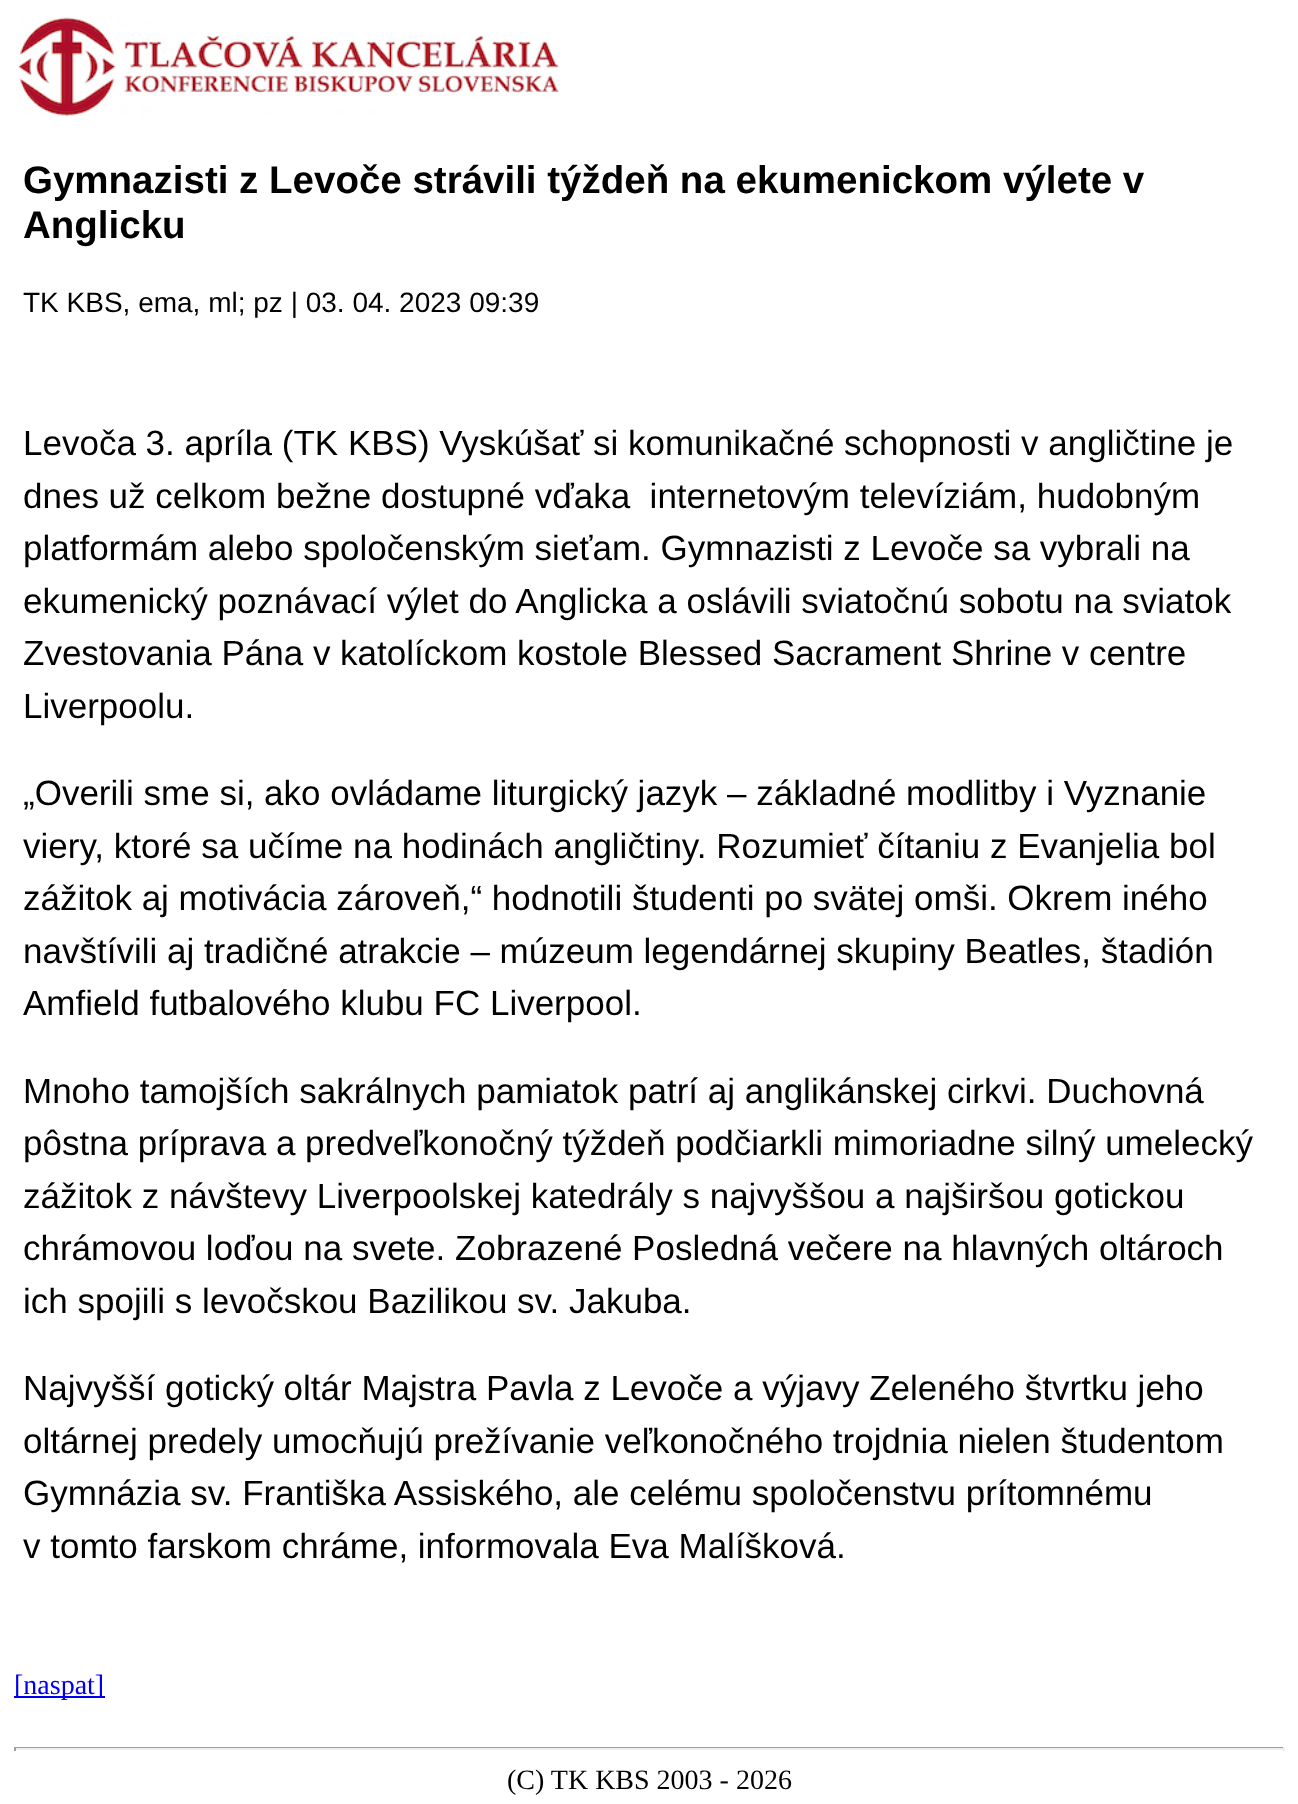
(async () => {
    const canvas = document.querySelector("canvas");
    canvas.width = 1298;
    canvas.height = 1804;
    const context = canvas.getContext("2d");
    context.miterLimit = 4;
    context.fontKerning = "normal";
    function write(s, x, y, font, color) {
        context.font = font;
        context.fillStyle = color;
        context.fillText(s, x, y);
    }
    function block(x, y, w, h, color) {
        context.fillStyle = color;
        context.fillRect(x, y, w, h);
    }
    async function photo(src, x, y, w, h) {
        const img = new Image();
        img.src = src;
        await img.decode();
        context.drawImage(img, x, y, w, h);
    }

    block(0, 0, 1298, 1804, "rgb(255, 255, 255)");
    await photo("media/1.png", 17, 17, 542, 100);
    write("Gymnazisti z Levoče strávili týždeň na ekumenickom výlete v", 23, 193, "bold 38.5px Liberation Sans", "rgb(0, 0, 0)");
    write("Anglicku", 23, 238, "bold 38.5px Liberation Sans", "rgb(0, 0, 0)");
    write("TK KBS, ema, ml; pz | 03. 04. 2023 09:39", 23, 312, "28px Liberation Sans", "rgb(0, 0, 0)");
    write("Levoča 3. apríla (TK KBS) Vyskúšať si komunikačné schopnosti v angličtine je", 23, 455, "35px Liberation Sans", "rgb(0, 0, 0)");
    write("dnes už celkom bežne dostupné vďaka  internetovým televíziám, hudobným", 23, 508, "35px Liberation Sans", "rgb(0, 0, 0)");
    write("platformám alebo spoločenským sieťam. Gymnazisti z Levoče sa vybrali na", 23, 560, "35px Liberation Sans", "rgb(0, 0, 0)");
    write("ekumenický poznávací výlet do Anglicka a oslávili sviatočnú sobotu na sviatok", 23, 613, "35px Liberation Sans", "rgb(0, 0, 0)");
    write("Zvestovania Pána v katolíckom kostole Blessed Sacrament Shrine v centre", 23, 665, "35px Liberation Sans", "rgb(0, 0, 0)");
    write("Liverpoolu.", 23, 718, "35px Liberation Sans", "rgb(0, 0, 0)");
    write("„Overili sme si, ako ovládame liturgický jazyk – základné modlitby i Vyznanie", 23, 805, "35px Liberation Sans", "rgb(0, 0, 0)");
    write("viery, ktoré sa učíme na hodinách angličtiny. Rozumieť čítaniu z Evanjelia bol", 23, 858, "35px Liberation Sans", "rgb(0, 0, 0)");
    write("zážitok aj motivácia zároveň,“ hodnotili študenti po svätej omši. Okrem iného", 23, 910, "35px Liberation Sans", "rgb(0, 0, 0)");
    write("navštívili aj tradičné atrakcie – múzeum legendárnej skupiny Beatles, štadión", 23, 963, "35px Liberation Sans", "rgb(0, 0, 0)");
    write("Amfield futbalového klubu FC Liverpool.", 23, 1015, "35px Liberation Sans", "rgb(0, 0, 0)");
    write("Mnoho tamojších sakrálnych pamiatok patrí aj anglikánskej cirkvi. Duchovná", 23, 1103, "35px Liberation Sans", "rgb(0, 0, 0)");
    write("pôstna príprava a predveľkonočný týždeň podčiarkli mimoriadne silný umelecký", 23, 1155, "35px Liberation Sans", "rgb(0, 0, 0)");
    write("zážitok z návštevy Liverpoolskej katedrály s najvyššou a najširšou gotickou", 23, 1208, "35px Liberation Sans", "rgb(0, 0, 0)");
    write("chrámovou loďou na svete. Zobrazené Posledná večere na hlavných oltároch", 23, 1260, "35px Liberation Sans", "rgb(0, 0, 0)");
    write("ich spojili s levočskou Bazilikou sv. Jakuba.", 23, 1313, "35px Liberation Sans", "rgb(0, 0, 0)");
    write("Najvyšší gotický oltár Majstra Pavla z Levoče a výjavy Zeleného štvrtku jeho", 23, 1400, "35px Liberation Sans", "rgb(0, 0, 0)");
    write("oltárnej predely umocňujú prežívanie veľkonočného trojdnia nielen študentom", 23, 1453, "35px Liberation Sans", "rgb(0, 0, 0)");
    write("Gymnázia sv. Františka Assiského, ale celému spoločenstvu prítomnému", 23, 1505, "35px Liberation Sans", "rgb(0, 0, 0)");
    write("v tomto farskom chráme, informovala Eva Malíšková.", 23, 1558, "35px Liberation Sans", "rgb(0, 0, 0)");
    block(14, 1696, 91, 2, "rgb(0, 0, 238)");
    write("[naspat]", 14, 1694, "28px Liberation Serif", "rgb(0, 0, 238)");
    block(14, 1747, 1271, 1, "rgb(159, 159, 159)");
    block(1283, 1747, 2, 4, "rgb(238, 238, 238)");
    block(14, 1748, 1271, 2, "rgb(238, 238, 238)");
    block(14, 1747, 2, 4, "rgb(159, 159, 159)");
    write("(C) TK KBS 2003 - 2026", 507, 1789, "28px Liberation Serif", "rgb(0, 0, 0)");
})();
